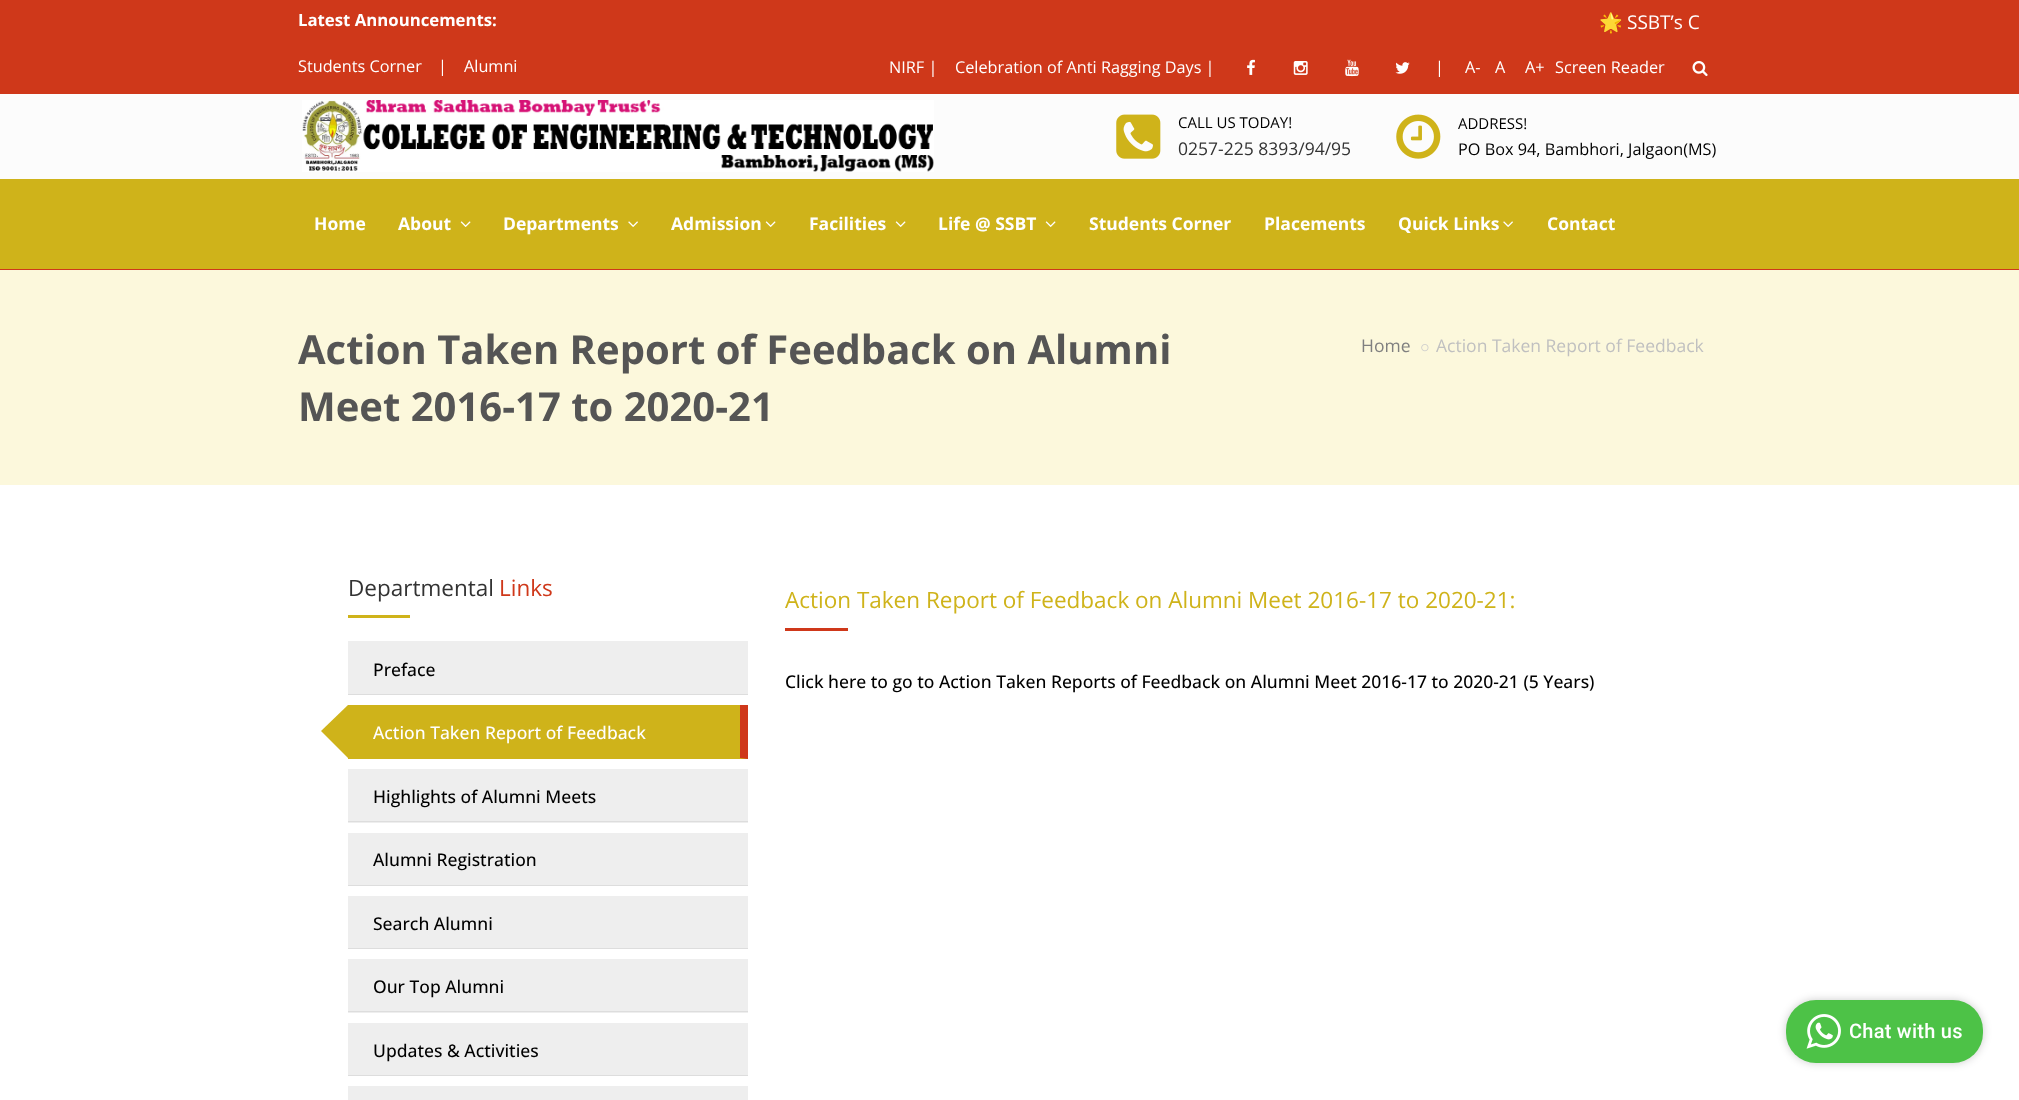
(async () => {
    const canvas = document.querySelector("canvas");
    canvas.width = 2019;
    canvas.height = 1100;
    const context = canvas.getContext("2d");
    context.miterLimit = 4;
    context.fontKerning = "normal";
    function write(s, x, y, font, color) {
        context.font = font;
        context.fillStyle = color;
        context.fillText(s, x, y);
    }
    function block(x, y, w, h, color) {
        context.fillStyle = color;
        context.fillRect(x, y, w, h);
    }
    function card(x, y, w, h, r, color) {
        context.fillStyle = color;
        context.beginPath();
        context.roundRect(x, y, w, h, r);
        context.fill();
    }
    async function photo(src, x, y, w, h) {
        const img = new Image();
        img.src = src;
        await img.decode();
        context.drawImage(img, x, y, w, h);
    }

    block(0, 0, 2019, 1100, "rgb(255, 255, 255)");
    block(0, 0, 2019, 94, "rgb(207, 56, 26)");
    write("Latest Announcements:", 298, 26, "bold 16.75px Open Sans", "rgb(255, 255, 255)");
    write("🌟", 1599, 29, "19px Noto Color Emoji", "rgb(255, 255, 255)");
    write("SSBT’s C", 1627, 29, "19px Open Sans", "rgb(255, 255, 255)");
    write("Students Corner", 298, 72, "16.25px Open Sans", "rgb(255, 255, 255)");
    write("|", 438, 72, "16.25px Open Sans", "rgb(255, 255, 255)");
    write("Alumni", 464, 72, "16.25px Open Sans", "rgb(255, 255, 255)");
    write("NIRF |", 889, 73, "16.25px Open Sans", "rgb(255, 255, 255)");
    write("Celebration of Anti Ragging Days |", 955, 73, "16.25px Open Sans", "rgb(255, 255, 255)");
    await photo("media/1.png", 1247, 59, 8, 16);
    await photo("media/2.png", 1293, 61, 15, 14);
    await photo("media/3.png", 1345, 59, 14, 18);
    await photo("media/4.png", 1395, 62, 15, 12);
    write("|", 1435, 73, "16.25px Open Sans", "rgb(255, 255, 255)");
    write("A-", 1465, 73, "16.25px Open Sans", "rgb(255, 255, 255)");
    write("A", 1495, 73, "16.25px Open Sans", "rgb(255, 255, 255)");
    write("A+", 1525, 73, "16.25px Open Sans", "rgb(255, 255, 255)");
    write("Screen Reader", 1555, 73, "16.25px Open Sans", "rgb(255, 255, 255)");
    await photo("media/5.png", 1692, 61, 16, 16);
    block(0, 94, 2019, 85, "rgb(252, 252, 252)");
    await photo("media/6.png", 302, 100, 632, 72);
    await photo("media/7.png", 1116, 114, 45, 45);
    write("CALL US TODAY!", 1178, 128, "15px Open Sans", "rgb(0, 0, 0)");
    write("0257-225 8393/94/95", 1178, 155, "17.5px Open Sans", "rgb(51, 51, 51)");
    await photo("media/8.png", 1396, 114, 45, 45);
    write("ADDRESS!", 1458, 129, "15px Open Sans", "rgb(0, 0, 0)");
    write("PO Box 94, Bambhori, Jalgaon(MS)", 1458, 155, "16.25px Open Sans", "rgb(0, 0, 0)");
    block(0, 179, 2019, 90, "rgb(207, 179, 26)");
    block(0, 269, 2019, 1, "rgb(207, 56, 26)");
    write("Home", 314, 230, "bold 17.5px Open Sans", "rgb(255, 255, 255)");
    write("About", 398, 230, "bold 17.5px Open Sans", "rgb(255, 255, 255)");
    await photo("media/9.png", 460, 221, 11, 6);
    write("Departments", 503, 230, "bold 17.5px Open Sans", "rgb(255, 255, 255)");
    await photo("media/10.png", 628, 221, 10, 6);
    write("Admission", 671, 230, "bold 17.5px Open Sans", "rgb(255, 255, 255)");
    await photo("media/9.png", 765, 221, 11, 6);
    write("Facilities", 809, 230, "bold 17.5px Open Sans", "rgb(255, 255, 255)");
    await photo("media/9.png", 895, 221, 11, 6);
    write("Life @ SSBT", 938, 230, "bold 17.5px Open Sans", "rgb(255, 255, 255)");
    await photo("media/9.png", 1045, 221, 11, 6);
    write("Students Corner", 1089, 230, "bold 17.5px Open Sans", "rgb(255, 255, 255)");
    write("Placements", 1264, 230, "bold 17.5px Open Sans", "rgb(255, 255, 255)");
    write("Quick Links", 1398, 230, "bold 17.5px Open Sans", "rgb(255, 255, 255)");
    await photo("media/10.png", 1503, 221, 10, 6);
    write("Contact", 1547, 230, "bold 17.5px Open Sans", "rgb(255, 255, 255)");
    block(0, 270, 2019, 215, "rgb(252, 248, 220)");
    write("Action Taken Report of Feedback on Alumni", 298, 364, "bold 40px Open Sans", "rgb(85, 85, 85)");
    write("Meet 2016-17 to 2020-21", 298, 421, "bold 40px Open Sans", "rgb(85, 85, 85)");
    write("Home", 1361, 352, "17.5px Open Sans", "rgb(128, 128, 128)");
    await photo("media/11.png", 1421, 344, 8, 8);
    write("Action Taken Report of Feedback", 1436, 352, "17.5px Open Sans", "rgb(192, 192, 192)");
    write("Departmental", 348, 596, "22.5px Open Sans", "rgb(51, 51, 51)");
    write("Links", 499, 596, "22.5px Open Sans", "rgb(207, 56, 26)");
    block(348, 615, 62, 3, "rgb(207, 179, 26)");
    block(348, 641, 400, 53, "rgb(238, 238, 238)");
    block(348, 694, 400, 1, "rgb(221, 221, 221)");
    write("Preface", 373, 676, "500 17.5px Open Sans", "rgb(0, 0, 0)");
    block(348, 705, 400, 54, "rgb(207, 179, 26)");
    context.fillStyle = "rgb(207, 56, 26)";
    context.beginPath();
    context.moveTo(748, 705);
    context.lineTo(748, 759);
    context.lineTo(740, 758);
    context.lineTo(740, 705);
    context.closePath();
    context.fill();
    context.fillStyle = "rgb(207, 179, 26)";
    context.beginPath();
    context.moveTo(348, 705);
    context.lineTo(348, 758);
    context.lineTo(321, 731);
    context.closePath();
    context.fill();
    write("Action Taken Report of Feedback", 373, 739, "500 17.5px Open Sans", "rgb(255, 255, 255)");
    block(348, 769, 400, 54, "rgb(238, 238, 238)");
    block(348, 821, 400, 1, "rgb(221, 221, 221)");
    write("Highlights of Alumni Meets", 373, 803, "500 17.5px Open Sans", "rgb(0, 0, 0)");
    block(348, 833, 400, 52, "rgb(238, 238, 238)");
    block(348, 885, 400, 1, "rgb(221, 221, 221)");
    write("Alumni Registration", 373, 866, "500 17.5px Open Sans", "rgb(0, 0, 0)");
    block(348, 896, 400, 52, "rgb(238, 238, 238)");
    block(348, 948, 400, 1, "rgb(221, 221, 221)");
    write("Search Alumni", 373, 930, "500 17.5px Open Sans", "rgb(0, 0, 0)");
    block(348, 959, 400, 54, "rgb(238, 238, 238)");
    block(348, 1011, 400, 1, "rgb(221, 221, 221)");
    write("Our Top Alumni", 373, 993, "500 17.5px Open Sans", "rgb(0, 0, 0)");
    block(348, 1023, 400, 52, "rgb(238, 238, 238)");
    block(348, 1075, 400, 1, "rgb(221, 221, 221)");
    write("Updates & Activities", 373, 1057, "500 17.5px Open Sans", "rgb(0, 0, 0)");
    block(348, 1086, 400, 14, "rgb(238, 238, 238)");
    write("Action Taken Report of Feedback on Alumni Meet 2016-17 to 2020-21:", 785, 608, "22.5px Open Sans", "rgb(207, 179, 26)");
    block(785, 628, 63, 3, "rgb(207, 56, 26)");
    write("Click here to go to Action Taken Reports of Feedback on Alumni Meet 2016-17 to 2020-21 (5 Years)", 785, 688, "500 17.5px Open Sans", "rgb(0, 0, 0)");
    context.fillStyle = "rgba(0, 0, 0, 0.2)";
    context.filter = "blur(4.5px)";
    context.beginPath();
    context.roundRect(1786, 1000, 197, 63, 30);
    context.fill();
    context.filter = "none";
    card(1786, 1000, 197, 63, 30, "rgb(77, 194, 71)");
    await photo("media/12.png", 1806, 1014, 35, 35);
    context.letterSpacing = "0.25px";
    write("Chat with us", 1849, 1038, "500 20px Roboto", "rgb(255, 255, 255)");
})();
